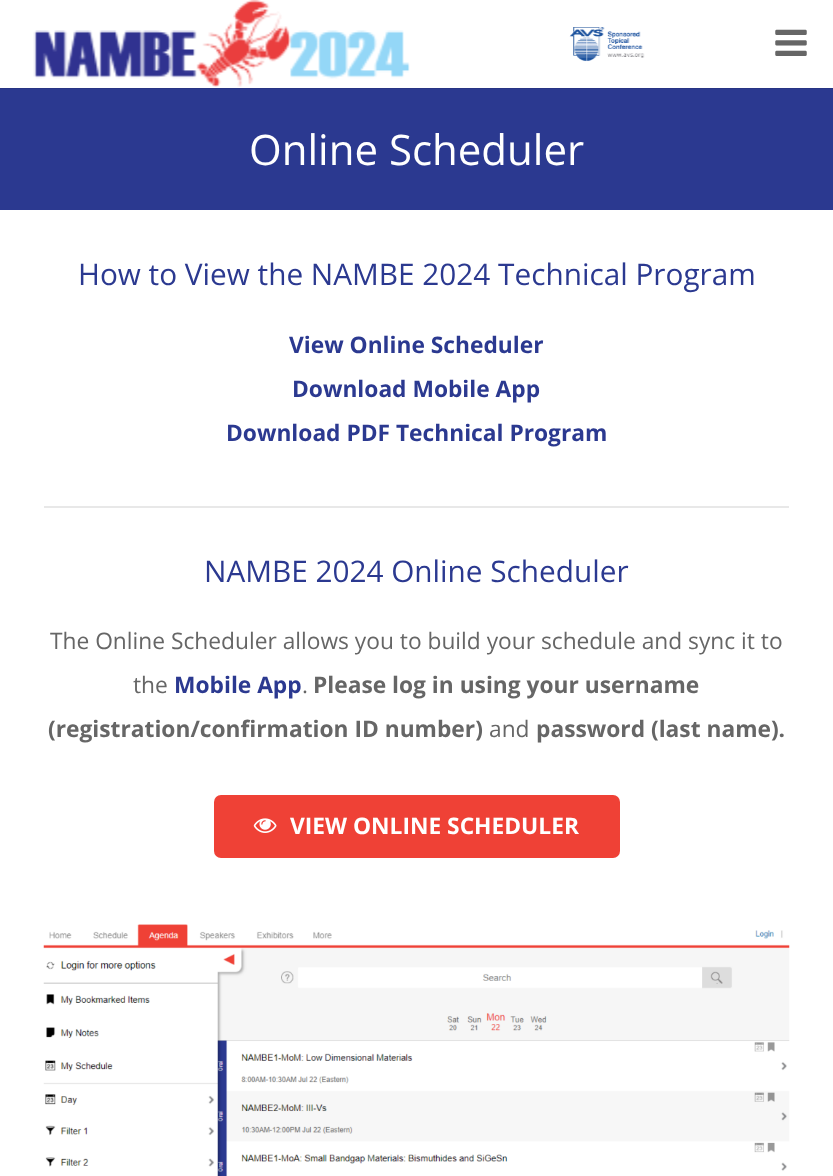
(async () => {
    const canvas = document.querySelector("canvas");
    canvas.width = 833;
    canvas.height = 1176;
    const context = canvas.getContext("2d");
    context.miterLimit = 4;
    context.fontKerning = "normal";
    function write(s, x, y, font, color) {
        context.font = font;
        context.fillStyle = color;
        context.fillText(s, x, y);
    }
    function block(x, y, w, h, color) {
        context.fillStyle = color;
        context.fillRect(x, y, w, h);
    }
    function card(x, y, w, h, r, color) {
        context.fillStyle = color;
        context.beginPath();
        context.roundRect(x, y, w, h, r);
        context.fill();
    }
    async function photo(src, x, y, w, h) {
        const img = new Image();
        img.src = src;
        await img.decode();
        context.drawImage(img, x, y, w, h);
    }

    block(0, 0, 833, 1176, "rgb(255, 255, 255)");
    block(0, 88, 833, 1, "rgb(40, 52, 132)");
    await photo("media/1.png", 33, 0, 377, 87);
    await photo("media/2.png", 569, 27, 76, 35);
    await photo("media/3.png", 775, 29, 32, 27);
    block(0, 89, 833, 121, "rgb(43, 57, 144)");
    write("Online Scheduler", 249, 165, "42px Open Sans", "rgb(255, 255, 255)");
    write("How to View the NAMBE 2024 Technical Program", 78, 285, "29.75px Open Sans", "rgb(43, 57, 144)");
    write("View Online Scheduler", 289, 353, "bold 22.75px Open Sans", "rgb(43, 57, 144)");
    write("Download Mobile App", 292, 397, "bold 22.75px Open Sans", "rgb(43, 57, 144)");
    write("Download PDF Technical Program", 226, 441, "bold 22.75px Open Sans", "rgb(43, 57, 144)");
    block(44, 506, 745, 2, "rgb(232, 232, 232)");
    write("NAMBE 2024 Online Scheduler", 204, 582, "29.75px Open Sans", "rgb(43, 57, 144)");
    write("The Online Scheduler allows you to build your schedule and sync it to", 50, 649, "22.75px Open Sans", "rgb(102, 102, 102)");
    write("the", 133, 693, "22.75px Open Sans", "rgb(102, 102, 102)");
    write("Mobile App", 174, 693, "bold 22.75px Open Sans", "rgb(43, 57, 144)");
    write(".", 302, 693, "22.75px Open Sans", "rgb(102, 102, 102)");
    write("Please log in using your username", 313, 693, "bold 22.75px Open Sans", "rgb(102, 102, 102)");
    write("(registration/confirmation ID number)", 48, 737, "bold 22.75px Open Sans", "rgb(102, 102, 102)");
    write("and", 489, 737, "22.75px Open Sans", "rgb(102, 102, 102)");
    write("password (last name).", 536, 737, "bold 22.75px Open Sans", "rgb(102, 102, 102)");
    card(214, 795, 406, 63, 7, "rgb(239, 65, 54)");
    await photo("media/4.png", 253, 818, 24, 15);
    write("VIEW ONLINE SCHEDULER", 290, 834, "bold 22.75px Open Sans", "rgb(255, 255, 255)");
    await photo("media/5.png", 43, 924, 747, 252);
})();
